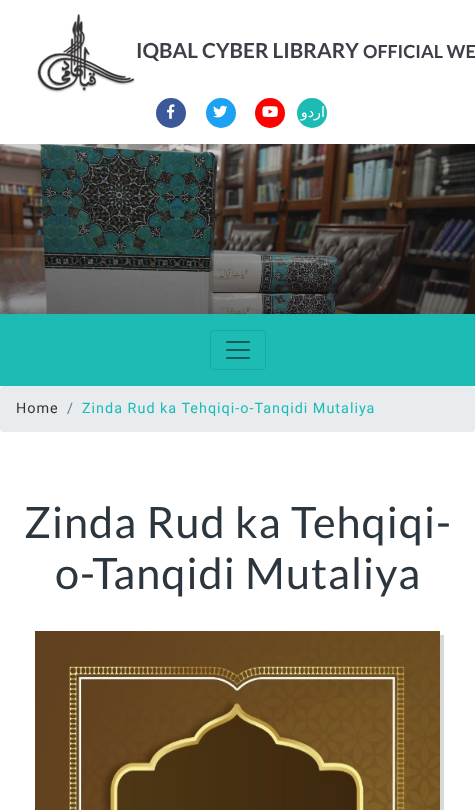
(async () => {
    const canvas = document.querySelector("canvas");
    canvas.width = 475;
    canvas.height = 810;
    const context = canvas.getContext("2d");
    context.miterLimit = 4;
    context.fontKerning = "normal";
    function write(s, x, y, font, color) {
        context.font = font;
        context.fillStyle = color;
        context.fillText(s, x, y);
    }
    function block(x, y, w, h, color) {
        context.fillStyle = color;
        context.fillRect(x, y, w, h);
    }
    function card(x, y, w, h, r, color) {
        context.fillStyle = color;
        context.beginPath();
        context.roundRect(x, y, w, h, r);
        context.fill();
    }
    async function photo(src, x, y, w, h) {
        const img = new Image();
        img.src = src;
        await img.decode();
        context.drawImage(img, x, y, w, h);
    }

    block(0, 0, 475, 810, "rgb(255, 255, 255)");
    await photo("media/1.png", 37, 14, 98, 79);
    write("IQBAL CYBER LIBRARY", 136, 58, "bold 20.75px Lato", "rgb(61, 62, 72)");
    write("OFFICIAL WE", 363, 58, "bold 18px Lato", "rgb(61, 62, 72)");
    context.fillStyle = "rgb(59, 89, 152)";
    context.beginPath();
    context.arc(171, 113, 15, 0, Math.PI * 2);
    context.fill();
    await photo("media/2.png", 167, 104, 8, 15);
    context.fillStyle = "rgb(29, 161, 242)";
    context.beginPath();
    context.arc(221, 113, 15, 0, Math.PI * 2);
    context.fill();
    await photo("media/3.png", 213, 105, 15, 13);
    context.fillStyle = "rgb(255, 0, 0)";
    context.beginPath();
    context.arc(270, 113, 15, 0, Math.PI * 2);
    context.fill();
    await photo("media/4.png", 262, 106, 16, 11);
    context.fillStyle = "rgb(28, 187, 180)";
    context.beginPath();
    context.arc(312, 113, 15, 0, Math.PI * 2);
    context.fill();
    context.direction = "rtl";
    write("اردو", 325, 117, "14.4px DejaVu Sans", "rgb(255, 255, 255)");
    await photo("media/5.png", 0, 144, 475, 170);
    block(0, 314, 475, 72, "rgb(28, 187, 180)");
    context.beginPath();
    context.roundRect(210.5, 330.5, 55, 39, 3.5);
    context.strokeStyle = "rgb(25, 168, 162)";
    context.stroke();
    await photo("media/6.png", 226, 341, 24, 18);
    card(0, 386, 475, 46, 4, "rgb(233, 236, 239)");
    context.letterSpacing = "1px";
    context.direction = "ltr";
    write("Home", 16, 413, "14.4px Roboto", "rgb(51, 51, 51)");
    write("/", 67, 413, "14.4px Roboto", "rgb(108, 117, 125)");
    write("Zinda Rud ka Tehqiqi-o-Tanqidi Mutaliya", 82, 413, "14.4px Roboto", "rgb(28, 187, 180)");
    write("Zinda Rud ka Tehqiqi-", 24, 538, "43.25px Lato", "rgb(44, 54, 62)");
    write("o-Tanqidi Mutaliya", 55, 589, "43.25px Lato", "rgb(44, 54, 62)");
    await photo("media/7.png", 35, 631, 405, 179);
    context.fillStyle = "rgb(214, 217, 218)";
    context.beginPath();
    context.moveTo(39, 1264);
    context.lineTo(39, 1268);
    context.lineTo(444, 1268);
    context.lineTo(444, 635);
    context.lineTo(440, 635);
    context.lineTo(440, 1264);
    context.closePath();
    context.fill();
})();
